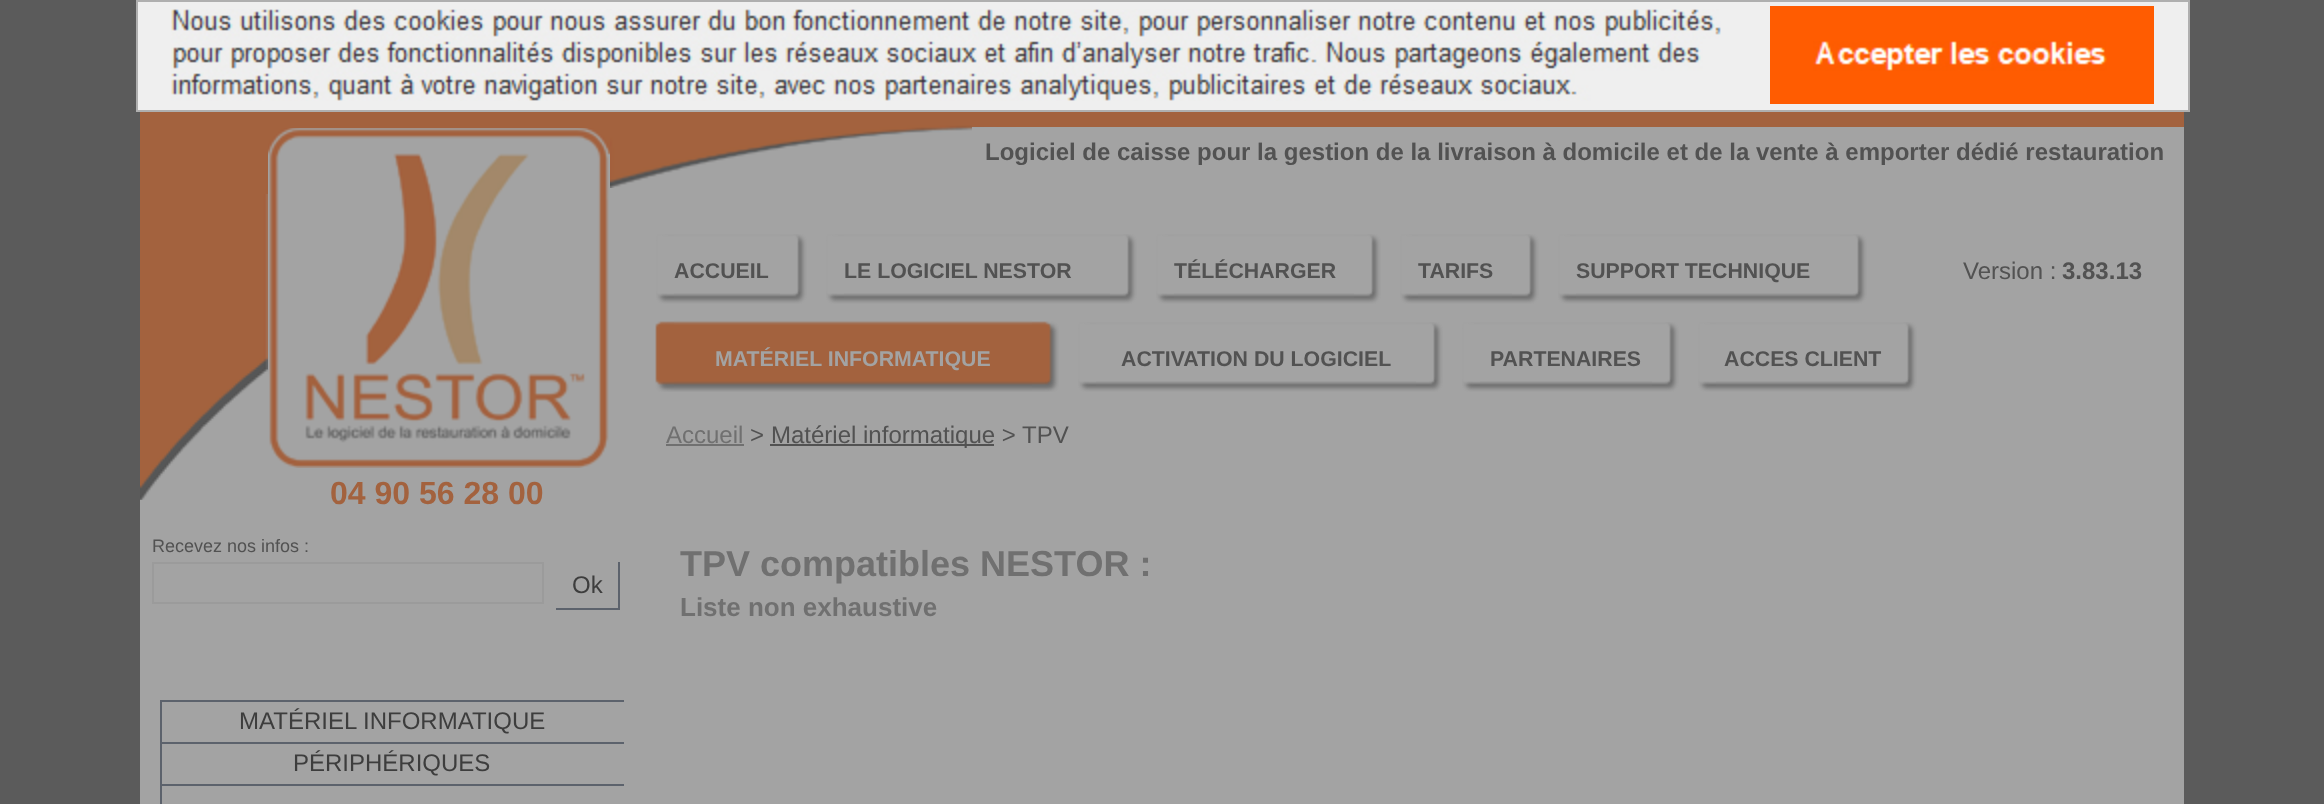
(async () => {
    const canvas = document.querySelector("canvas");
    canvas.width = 2324;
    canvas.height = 804;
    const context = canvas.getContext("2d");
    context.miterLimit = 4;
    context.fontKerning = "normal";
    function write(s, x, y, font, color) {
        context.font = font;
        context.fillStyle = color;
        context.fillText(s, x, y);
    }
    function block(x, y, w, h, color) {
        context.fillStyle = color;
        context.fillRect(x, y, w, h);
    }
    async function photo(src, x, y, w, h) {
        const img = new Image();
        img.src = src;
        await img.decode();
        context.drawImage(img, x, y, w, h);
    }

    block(0, 0, 2324, 804, "rgb(91, 91, 91)");
    context.fillStyle = "rgb(239, 239, 239)";
    context.beginPath();
    context.rect(137, 1, 2052, 110);
    context.fill();
    context.strokeStyle = "rgb(175, 175, 175)";
    context.lineWidth = 2;
    context.stroke();
    await photo("media/1.png", 171, 9, 1550, 92);
    block(1770, 6, 384, 98, "rgb(255, 92, 1)");
    await photo("media/2.png", 1813, 41, 294, 30);
    block(140, 131, 2044, 673, "rgb(163, 163, 163)");
    await photo("media/3.png", 140, 194, 128, 306);
    write("Logiciel de caisse pour la gestion de la livraison à domicile et de la vente à emporter dédié restauration", 985, 160, "bold 24px Liberation Sans", "rgb(82, 82, 82)");
    write("Version :", 1963, 279, "24px Liberation Sans", "rgb(82, 82, 82)");
    write("3.83.13", 2062, 279, "bold 24px Liberation Sans", "rgb(82, 82, 82)");
    write("Accueil", 666, 443, "24px Liberation Sans", "rgb(112, 112, 112)");
    block(666, 444, 78, 2, "rgb(112, 112, 112)");
    write(">", 750, 443, "24px Liberation Sans", "rgb(82, 82, 82)");
    block(770, 444, 224, 2, "rgb(82, 82, 82)");
    write("Matériel informatique > TPV", 771, 443, "24px Liberation Sans", "rgb(82, 82, 82)");
    write("TPV compatibles NESTOR :", 680, 576, "bold 36px Liberation Sans", "rgb(112, 112, 112)");
    write("Liste non exhaustive", 680, 616, "bold 26px Liberation Sans", "rgb(112, 112, 112)");
    await photo("media/4.png", 268, 128, 342, 340);
    write("04 90 56 28 00", 330, 504, "bold 32px Liberation Sans", "rgb(163, 98, 62)");
    block(618, 562, 2, 48, "rgb(92, 98, 108)");
    block(556, 608, 64, 2, "rgb(92, 98, 108)");
    write("Ok", 572, 593, "24px Liberation Sans", "rgb(61, 61, 61)");
    block(140, 112, 2044, 16, "rgb(163, 98, 62)");
    await photo("media/5.png", 610, 125, 368, 63);
    await photo("media/6.png", 972, 125, 1212, 6);
    block(140, 128, 128, 66, "rgb(163, 98, 62)");
    await photo("media/7.png", 656, 234, 18, 70);
    await photo("media/8.png", 674, 234, 106, 70);
    write("ACCUEIL", 674, 278, "bold 21.3px Liberation Sans", "rgb(82, 82, 82)");
    await photo("media/9.png", 780, 234, 27, 70);
    await photo("media/7.png", 826, 234, 18, 70);
    await photo("media/10.png", 844, 234, 266, 70);
    write("LE LOGICIEL NESTOR", 844, 278, "bold 21.3px Liberation Sans", "rgb(82, 82, 82)");
    await photo("media/9.png", 1110, 234, 27, 70);
    await photo("media/7.png", 1156, 234, 18, 70);
    await photo("media/11.png", 1174, 234, 180, 70);
    write("TÉLÉCHARGER", 1174, 278, "bold 21.3px Liberation Sans", "rgb(82, 82, 82)");
    await photo("media/9.png", 1354, 234, 27, 70);
    await photo("media/7.png", 1400, 234, 18, 70);
    await photo("media/12.png", 1418, 234, 94, 70);
    write("TARIFS", 1418, 278, "bold 21.3px Liberation Sans", "rgb(82, 82, 82)");
    await photo("media/9.png", 1512, 234, 27, 70);
    await photo("media/7.png", 1558, 234, 18, 70);
    await photo("media/13.png", 1576, 234, 264, 70);
    write("SUPPORT TECHNIQUE", 1576, 278, "bold 21.3px Liberation Sans", "rgb(82, 82, 82)");
    await photo("media/9.png", 1840, 234, 27, 70);
    await photo("media/14.png", 655, 321, 19, 71);
    await photo("media/15.png", 674, 320, 358, 72);
    write("MATÉRIEL INFORMATIQUE", 715, 366, "bold 21.3px Liberation Sans", "rgb(163, 163, 163)");
    await photo("media/16.png", 1032, 321, 27, 71);
    await photo("media/7.png", 1078, 322, 18, 70);
    await photo("media/17.png", 1096, 322, 320, 70);
    write("ACTIVATION DU LOGICIEL", 1121, 366, "bold 21.3px Liberation Sans", "rgb(82, 82, 82)");
    await photo("media/9.png", 1416, 322, 27, 70);
    await photo("media/7.png", 1462, 322, 18, 70);
    await photo("media/18.png", 1480, 322, 172, 70);
    write("PARTENAIRES", 1490, 366, "bold 21.3px Liberation Sans", "rgb(82, 82, 82)");
    await photo("media/9.png", 1652, 322, 27, 70);
    await photo("media/7.png", 1698, 322, 18, 70);
    await photo("media/19.png", 1716, 322, 174, 70);
    write("ACCES CLIENT", 1724, 366, "bold 21.3px Liberation Sans", "rgb(82, 82, 82)");
    await photo("media/9.png", 1890, 322, 27, 70);
    write("Recevez nos infos :", 152, 552, "18px Liberation Sans", "rgb(82, 82, 82)");
    context.strokeStyle = "rgb(155, 155, 155)";
    context.strokeRect(153, 563, 390, 40);
    block(160, 700, 464, 2, "rgb(92, 98, 108)");
    block(160, 700, 2, 42, "rgb(92, 98, 108)");
    write("MATÉRIEL INFORMATIQUE", 239, 729, "24px Liberation Sans", "rgb(61, 61, 61)");
    block(160, 742, 464, 2, "rgb(92, 98, 108)");
    block(160, 742, 2, 42, "rgb(92, 98, 108)");
    write("PÉRIPHÉRIQUES", 293, 771, "24px Liberation Sans", "rgb(61, 61, 61)");
    block(160, 784, 464, 2, "rgb(92, 98, 108)");
    block(160, 784, 2, 20, "rgb(92, 98, 108)");
})();
